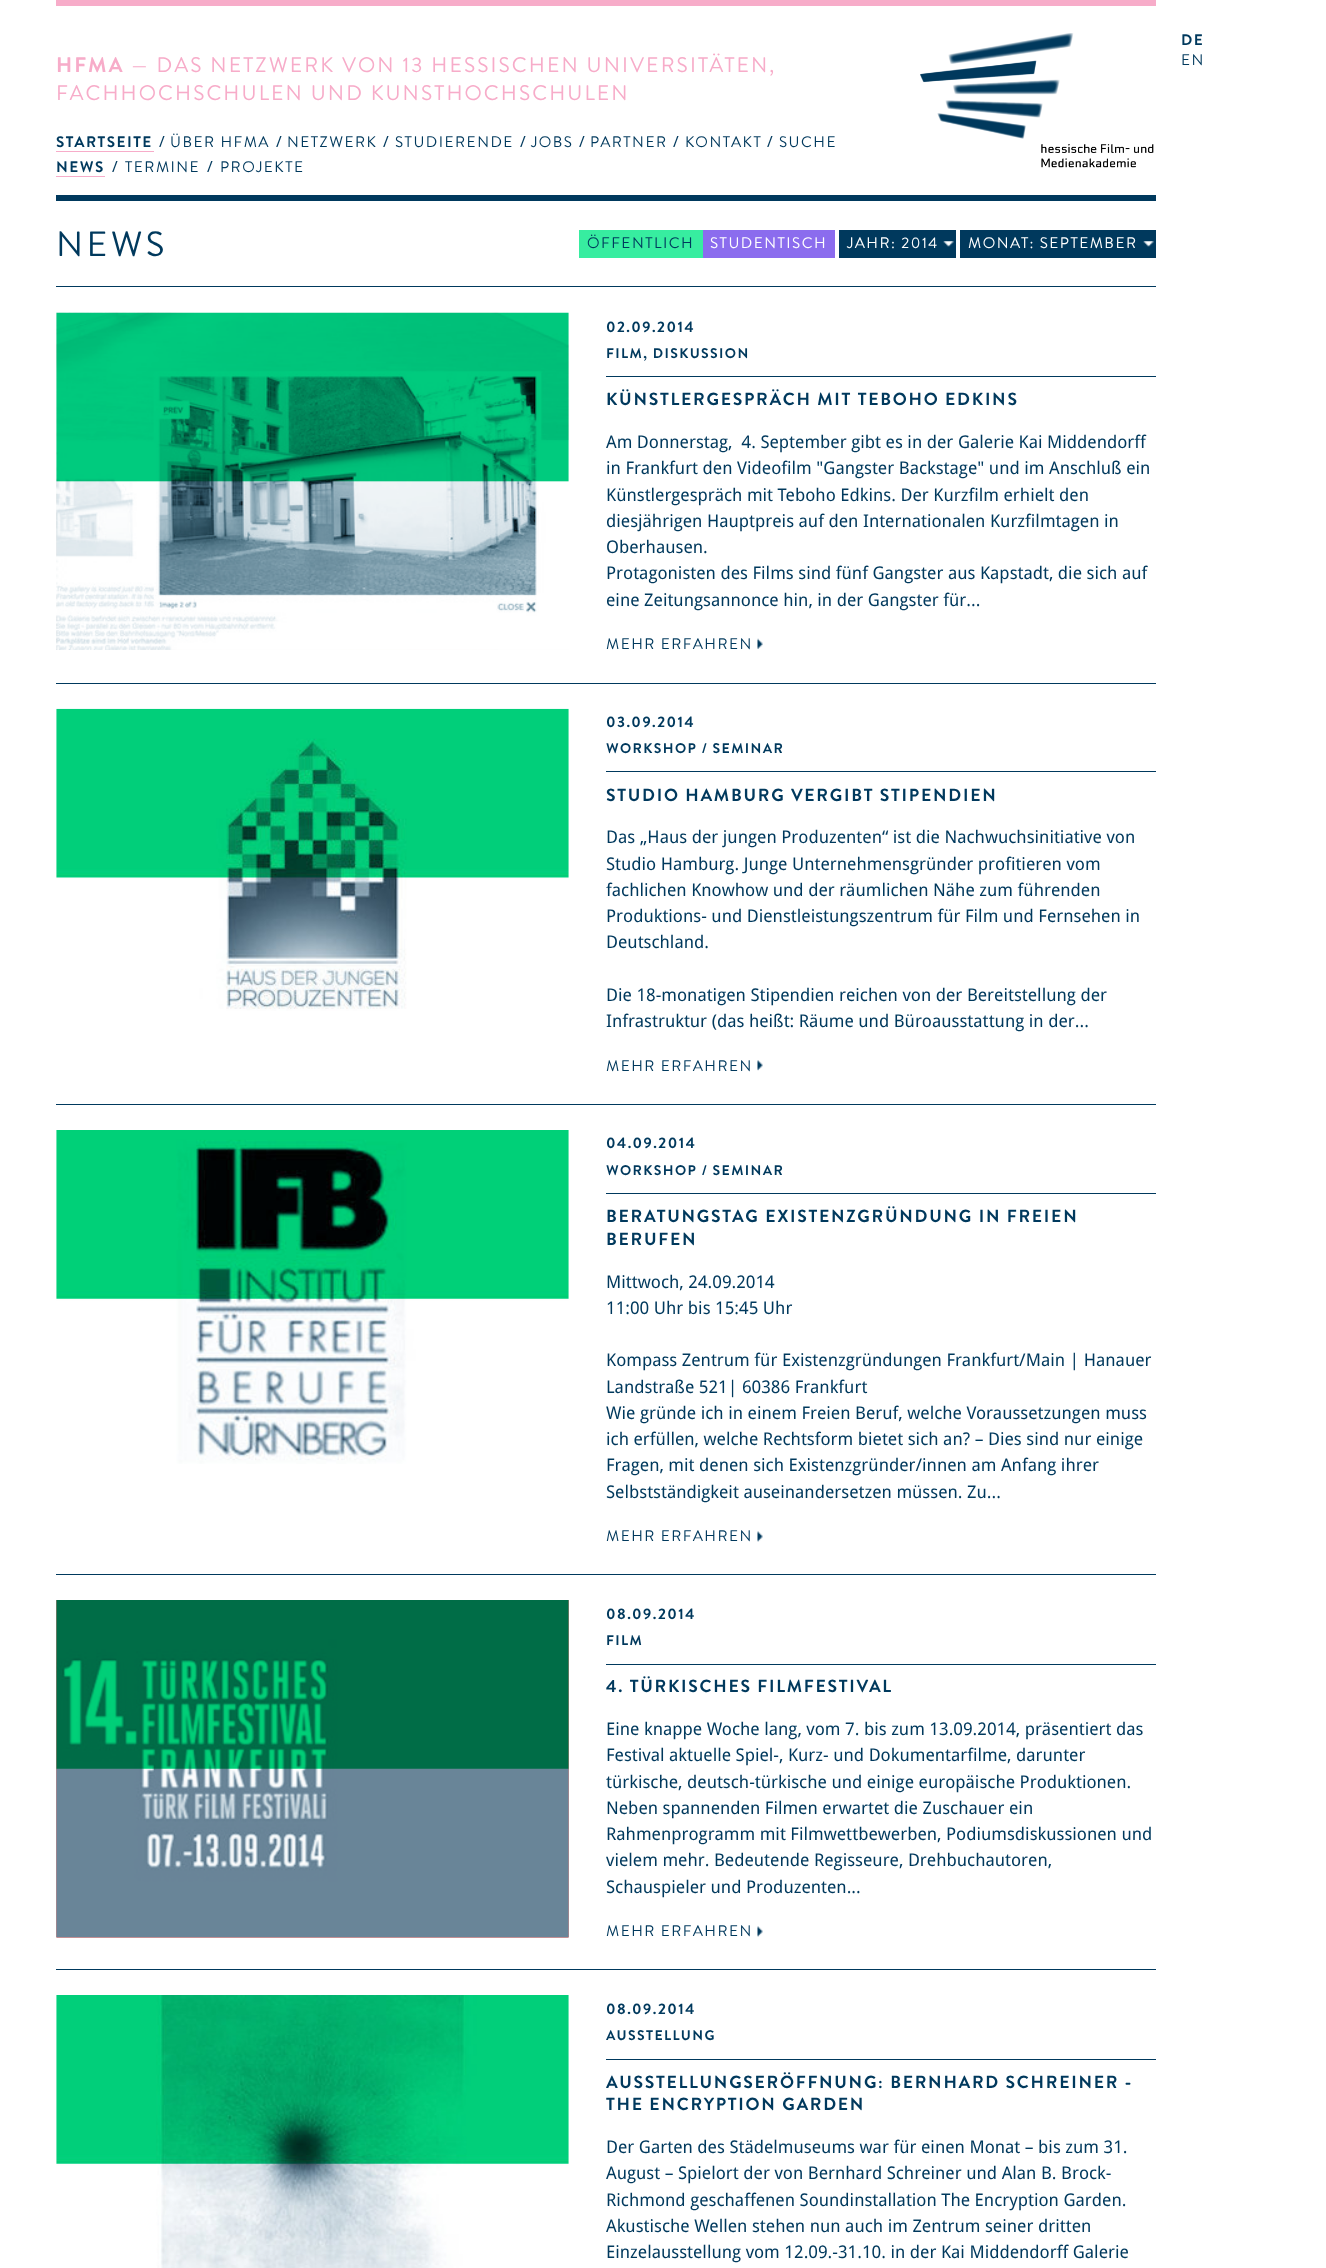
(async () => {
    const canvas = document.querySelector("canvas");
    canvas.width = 1326;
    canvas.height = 2268;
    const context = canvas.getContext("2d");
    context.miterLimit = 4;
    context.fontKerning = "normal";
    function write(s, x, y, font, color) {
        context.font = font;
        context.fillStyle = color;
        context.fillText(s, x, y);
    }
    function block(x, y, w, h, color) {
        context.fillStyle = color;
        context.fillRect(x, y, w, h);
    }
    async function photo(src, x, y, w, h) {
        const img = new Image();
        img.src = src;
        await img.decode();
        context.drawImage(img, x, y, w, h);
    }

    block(0, 0, 1326, 2268, "rgb(255, 255, 255)");
    block(56, 0, 1100, 6, "rgb(247, 172, 201)");
    block(56, 195, 1100, 6, "rgb(0, 57, 93)");
    context.letterSpacing = "2.1px";
    write("HFMA", 56, 72, "21px Brandon Grotesque", "rgb(247, 172, 201)");
    write("— DAS NETZWERK VON 13 HESSISCHEN UNIVERSITÄTEN,", 131, 72, "21px 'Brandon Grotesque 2'", "rgb(247, 172, 201)");
    write("FACHHOCHSCHULEN UND KUNSTHOCHSCHULEN", 56, 100, "21px 'Brandon Grotesque 2'", "rgb(247, 172, 201)");
    await photo("media/1.png", 920, 33, 234, 135);
    context.letterSpacing = "0px";
    write("/", 159, 147, "15.25px Droid Sans", "rgb(0, 57, 93)");
    context.letterSpacing = "1.5px";
    write("ÜBER HFMA", 170, 147, "15.25px 'Brandon Grotesque 2'", "rgb(0, 57, 93)");
    write("STARTSEITE", 56, 147, "15.25px Brandon Grotesque", "rgb(0, 57, 93)");
    block(56, 151, 98, 1, "rgb(247, 172, 201)");
    write("NEWS", 56, 172, "15.25px Brandon Grotesque", "rgb(0, 57, 93)");
    block(56, 176, 49, 1, "rgb(247, 172, 201)");
    context.letterSpacing = "0px";
    write("/", 112, 172, "15.25px Droid Sans", "rgb(0, 57, 93)");
    context.letterSpacing = "1.5px";
    write("TERMINE", 125, 172, "15.25px 'Brandon Grotesque 2'", "rgb(0, 57, 93)");
    context.letterSpacing = "0px";
    write("/", 207, 172, "15.25px Droid Sans", "rgb(0, 57, 93)");
    context.letterSpacing = "1.5px";
    write("PROJEKTE", 220, 172, "15.25px 'Brandon Grotesque 2'", "rgb(0, 57, 93)");
    context.letterSpacing = "0px";
    write("/", 276, 147, "15.25px Droid Sans", "rgb(0, 57, 93)");
    context.letterSpacing = "1.5px";
    write("NETZWERK", 287, 147, "15.25px 'Brandon Grotesque 2'", "rgb(0, 57, 93)");
    context.letterSpacing = "0px";
    write("/", 383, 147, "15.25px Droid Sans", "rgb(0, 57, 93)");
    context.letterSpacing = "1.5px";
    write("STUDIERENDE", 395, 147, "15.25px 'Brandon Grotesque 2'", "rgb(0, 57, 93)");
    context.letterSpacing = "0px";
    write("/", 520, 147, "15.25px Droid Sans", "rgb(0, 57, 93)");
    context.letterSpacing = "1.5px";
    write("JOBS", 531, 147, "15.25px 'Brandon Grotesque 2'", "rgb(0, 57, 93)");
    context.letterSpacing = "0px";
    write("/", 579, 147, "15.25px Droid Sans", "rgb(0, 57, 93)");
    context.letterSpacing = "1.5px";
    write("PARTNER", 590, 147, "15.25px 'Brandon Grotesque 2'", "rgb(0, 57, 93)");
    context.letterSpacing = "0px";
    write("/", 673, 147, "15.25px Droid Sans", "rgb(0, 57, 93)");
    context.letterSpacing = "1.5px";
    write("KONTAKT", 685, 147, "15.25px 'Brandon Grotesque 2'", "rgb(0, 57, 93)");
    context.letterSpacing = "0px";
    write("/", 767, 147, "15.25px Droid Sans", "rgb(0, 57, 93)");
    context.letterSpacing = "1.5px";
    write("SUCHE", 779, 147, "15.25px 'Brandon Grotesque 2'", "rgb(0, 57, 93)");
    write("DE", 1181, 45, "15.25px Brandon Grotesque", "rgb(0, 57, 93)");
    write("EN", 1181, 65, "15.25px 'Brandon Grotesque 2'", "rgb(0, 57, 93)");
    block(56, 286, 1100, 1, "rgb(0, 57, 93)");
    context.letterSpacing = "3.5px";
    write("NEWS", 56, 256, "35px 'Brandon Grotesque 2'", "rgb(0, 57, 93)");
    block(579, 230, 124, 28, "rgb(55, 237, 160)");
    context.letterSpacing = "1.5px";
    write("ÖFFENTLICH", 587, 248, "15.25px 'Brandon Grotesque 2'", "rgb(0, 57, 93)");
    block(703, 230, 132, 28, "rgb(139, 108, 238)");
    write("STUDENTISCH", 710, 248, "15.25px 'Brandon Grotesque 2'", "rgb(255, 255, 255)");
    block(839, 230, 117, 28, "rgb(0, 57, 93)");
    await photo("media/2.png", 943, 241, 11, 6);
    write("JAHR: 2014", 847, 248, "15.25px 'Brandon Grotesque 2'", "rgb(255, 255, 255)");
    block(960, 230, 196, 28, "rgb(0, 57, 93)");
    await photo("media/2.png", 1143, 241, 11, 6);
    write("MONAT: SEPTEMBER", 968, 248, "15.25px 'Brandon Grotesque 2'", "rgb(255, 255, 255)");
    block(56, 683, 1100, 1, "rgb(0, 57, 93)");
    await photo("media/3.png", 56, 312, 513, 338);
    await photo("media/4.png", 56, 312, 513, 338);
    block(606, 376, 550, 1, "rgb(0, 57, 93)");
    write("02.09.2014", 606, 332, "15.25px Brandon Grotesque", "rgb(0, 57, 93)");
    context.letterSpacing = "1.4px";
    write("FILM, DISKUSSION", 606, 358, "14px Brandon Grotesque", "rgb(0, 57, 93)");
    context.letterSpacing = "1.75px";
    write("KÜNSTLERGESPRÄCH MIT TEBOHO EDKINS", 606, 405, "17.5px Brandon Grotesque", "rgb(0, 57, 93)");
    context.letterSpacing = "0px";
    write("Am Donnerstag,  4. September gibt es in der Galerie Kai Middendorff", 606, 448, "17.5px Droid Sans", "rgb(0, 57, 93)");
    write("in Frankfurt den Videofilm \"Gangster Backstage\" und im Anschluß ein", 606, 474, "17.5px Droid Sans", "rgb(0, 57, 93)");
    write("Künstlergespräch mit Teboho Edkins. Der Kurzfilm erhielt den", 606, 501, "17.5px Droid Sans", "rgb(0, 57, 93)");
    write("diesjährigen Hauptpreis auf den Internationalen Kurzfilmtagen in", 606, 527, "17.5px Droid Sans", "rgb(0, 57, 93)");
    write("Oberhausen.", 606, 553, "17.5px Droid Sans", "rgb(0, 57, 93)");
    write("Protagonisten des Films sind fünf Gangster aus Kapstadt, die sich auf", 606, 579, "17.5px Droid Sans", "rgb(0, 57, 93)");
    write("eine Zeitungsannonce hin, in der Gangster für...", 606, 606, "17.5px Droid Sans", "rgb(0, 57, 93)");
    context.letterSpacing = "1.5px";
    write("MEHR ERFAHREN", 606, 649, "15.25px 'Brandon Grotesque 2'", "rgb(0, 57, 93)");
    await photo("media/5.png", 757, 638, 6, 11);
    block(56, 1104, 1100, 1, "rgb(0, 57, 93)");
    await photo("media/6.png", 56, 708, 513, 303);
    block(606, 771, 550, 1, "rgb(0, 57, 93)");
    write("03.09.2014", 606, 727, "15.25px Brandon Grotesque", "rgb(0, 57, 93)");
    context.letterSpacing = "1.4px";
    write("WORKSHOP / SEMINAR", 606, 753, "14px Brandon Grotesque", "rgb(0, 57, 93)");
    context.letterSpacing = "1.75px";
    write("STUDIO HAMBURG VERGIBT STIPENDIEN", 606, 801, "17.5px Brandon Grotesque", "rgb(0, 57, 93)");
    context.letterSpacing = "0px";
    write("Das „Haus der jungen Produzenten“ ist die Nachwuchsinitiative von", 606, 843, "17.5px Droid Sans", "rgb(0, 57, 93)");
    write("Studio Hamburg. Junge Unternehmensgründer profitieren vom", 606, 870, "17.5px Droid Sans", "rgb(0, 57, 93)");
    write("fachlichen Knowhow und der räumlichen Nähe zum führenden", 606, 896, "17.5px Droid Sans", "rgb(0, 57, 93)");
    write("Produktions- und Dienstleistungszentrum für Film und Fernsehen in", 606, 922, "17.5px Droid Sans", "rgb(0, 57, 93)");
    write("Deutschland.", 606, 948, "17.5px Droid Sans", "rgb(0, 57, 93)");
    write("Die 18-monatigen Stipendien reichen von der Bereitstellung der", 606, 1001, "17.5px Droid Sans", "rgb(0, 57, 93)");
    write("Infrastruktur (das heißt: Räume und Büroausstattung in der...", 606, 1027, "17.5px Droid Sans", "rgb(0, 57, 93)");
    context.letterSpacing = "1.5px";
    write("MEHR ERFAHREN", 606, 1071, "15.25px 'Brandon Grotesque 2'", "rgb(0, 57, 93)");
    await photo("media/7.png", 757, 1060, 6, 11);
    block(56, 1574, 1100, 1, "rgb(0, 57, 93)");
    await photo("media/8.png", 56, 1130, 513, 334);
    block(606, 1193, 550, 1, "rgb(0, 57, 93)");
    write("04.09.2014", 606, 1148, "15.25px Brandon Grotesque", "rgb(0, 57, 93)");
    context.letterSpacing = "1.4px";
    write("WORKSHOP / SEMINAR", 606, 1175, "14px Brandon Grotesque", "rgb(0, 57, 93)");
    context.letterSpacing = "1.75px";
    write("BERATUNGSTAG EXISTENZGRÜNDUNG IN FREIEN", 606, 1222, "17.5px Brandon Grotesque", "rgb(0, 57, 93)");
    write("BERUFEN", 606, 1245, "17.5px Brandon Grotesque", "rgb(0, 57, 93)");
    context.letterSpacing = "0px";
    write("Mittwoch, 24.09.2014", 606, 1288, "17.5px Droid Sans", "rgb(0, 57, 93)");
    write("11:00 Uhr bis 15:45 Uhr", 606, 1314, "17.5px Droid Sans", "rgb(0, 57, 93)");
    write("Kompass Zentrum für Existenzgründungen Frankfurt/Main | Hanauer", 606, 1366, "17.5px Droid Sans", "rgb(0, 57, 93)");
    write("Landstraße 521| 60386 Frankfurt", 606, 1393, "17.5px Droid Sans", "rgb(0, 57, 93)");
    write("Wie gründe ich in einem Freien Beruf, welche Voraussetzungen muss", 606, 1419, "17.5px Droid Sans", "rgb(0, 57, 93)");
    write("ich erfüllen, welche Rechtsform bietet sich an? – Dies sind nur einige", 606, 1445, "17.5px Droid Sans", "rgb(0, 57, 93)");
    write("Fragen, mit denen sich Existenzgründer/innen am Anfang ihrer", 606, 1471, "17.5px Droid Sans", "rgb(0, 57, 93)");
    write("Selbstständigkeit auseinandersetzen müssen. Zu...", 606, 1498, "17.5px Droid Sans", "rgb(0, 57, 93)");
    context.letterSpacing = "1.5px";
    write("MEHR ERFAHREN", 606, 1541, "15.25px 'Brandon Grotesque 2'", "rgb(0, 57, 93)");
    await photo("media/9.png", 757, 1531, 6, 11);
    block(56, 1969, 1100, 1, "rgb(0, 57, 93)");
    await photo("media/10.png", 56, 1600, 513, 338);
    await photo("media/11.png", 56, 1600, 513, 338);
    block(606, 1664, 550, 1, "rgb(0, 57, 93)");
    write("08.09.2014", 606, 1619, "15.25px Brandon Grotesque", "rgb(0, 57, 93)");
    context.letterSpacing = "1.4px";
    write("FILM", 606, 1645, "14px Brandon Grotesque", "rgb(0, 57, 93)");
    context.letterSpacing = "1.75px";
    write("4. TÜRKISCHES FILMFESTIVAL", 606, 1692, "17.5px Brandon Grotesque", "rgb(0, 57, 93)");
    context.letterSpacing = "0px";
    write("Eine knappe Woche lang, vom 7. bis zum 13.09.2014, präsentiert das", 606, 1735, "17.5px Droid Sans", "rgb(0, 57, 93)");
    write("Festival aktuelle Spiel-, Kurz- und Dokumentarfilme, darunter", 606, 1761, "17.5px Droid Sans", "rgb(0, 57, 93)");
    write("türkische, deutsch-türkische und einige europäische Produktionen.", 606, 1788, "17.5px Droid Sans", "rgb(0, 57, 93)");
    write("Neben spannenden Filmen erwartet die Zuschauer ein", 606, 1814, "17.5px Droid Sans", "rgb(0, 57, 93)");
    write("Rahmenprogramm mit Filmwettbewerben, Podiumsdiskussionen und", 606, 1840, "17.5px Droid Sans", "rgb(0, 57, 93)");
    write("vielem mehr. Bedeutende Regisseure, Drehbuchautoren,", 606, 1866, "17.5px Droid Sans", "rgb(0, 57, 93)");
    write("Schauspieler und Produzenten...", 606, 1893, "17.5px Droid Sans", "rgb(0, 57, 93)");
    context.letterSpacing = "1.5px";
    write("MEHR ERFAHREN", 606, 1936, "15.25px 'Brandon Grotesque 2'", "rgb(0, 57, 93)");
    await photo("media/9.png", 757, 1926, 6, 11);
    await photo("media/12.png", 56, 1995, 513, 273);
    block(606, 2059, 550, 1, "rgb(0, 57, 93)");
    write("08.09.2014", 606, 2014, "15.25px Brandon Grotesque", "rgb(0, 57, 93)");
    context.letterSpacing = "1.4px";
    write("AUSSTELLUNG", 606, 2040, "14px Brandon Grotesque", "rgb(0, 57, 93)");
    context.letterSpacing = "1.75px";
    write("AUSSTELLUNGSERÖFFNUNG: BERNHARD SCHREINER -", 606, 2088, "17.5px Brandon Grotesque", "rgb(0, 57, 93)");
    write("THE ENCRYPTION GARDEN", 606, 2110, "17.5px Brandon Grotesque", "rgb(0, 57, 93)");
    context.letterSpacing = "0px";
    write("Der Garten des Städelmuseums war für einen Monat – bis zum 31.", 606, 2153, "17.5px Droid Sans", "rgb(0, 57, 93)");
    write("August – Spielort der von Bernhard Schreiner und Alan B. Brock-", 606, 2179, "17.5px Droid Sans", "rgb(0, 57, 93)");
    write("Richmond geschaffenen Soundinstallation The Encryption Garden.", 606, 2206, "17.5px Droid Sans", "rgb(0, 57, 93)");
    write("Akustische Wellen stehen nun auch im Zentrum seiner dritten", 606, 2232, "17.5px Droid Sans", "rgb(0, 57, 93)");
    write("Einzelausstellung vom 12.09.-31.10. in der Kai Middendorff Galerie", 606, 2258, "17.5px Droid Sans", "rgb(0, 57, 93)");
})();
